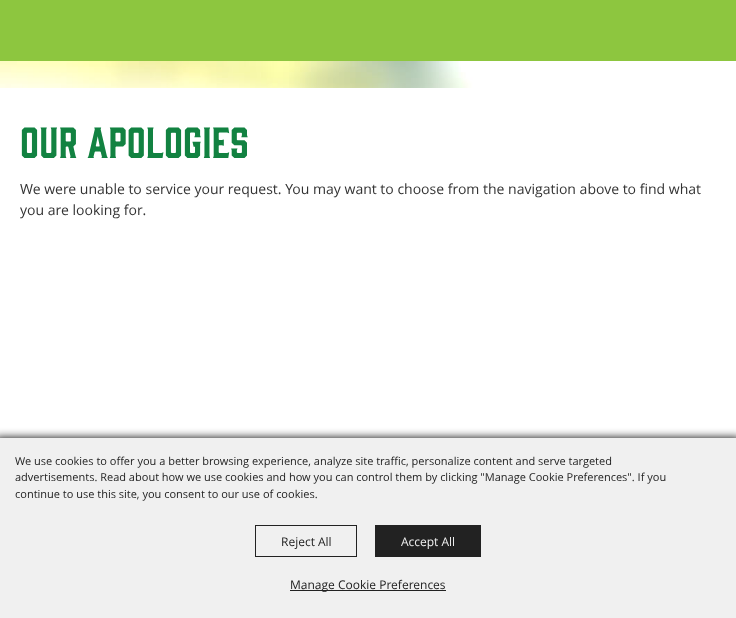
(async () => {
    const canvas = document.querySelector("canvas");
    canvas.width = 736;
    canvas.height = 618;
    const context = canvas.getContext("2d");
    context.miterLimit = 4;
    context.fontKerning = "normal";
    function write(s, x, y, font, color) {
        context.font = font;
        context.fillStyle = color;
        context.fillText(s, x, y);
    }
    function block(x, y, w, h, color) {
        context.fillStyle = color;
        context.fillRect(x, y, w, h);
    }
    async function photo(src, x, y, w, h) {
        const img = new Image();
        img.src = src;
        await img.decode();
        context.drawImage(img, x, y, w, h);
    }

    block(0, 0, 736, 618, "rgb(255, 255, 255)");
    await photo("media/1.png", 0, 61, 736, 27);
    block(0, 0, 736, 61, "rgb(141, 198, 63)");
    write("Our Apologies", 20, 158, "40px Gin", "rgb(18, 130, 65)");
    write("We were unable to service your request. You may want to choose from the navigation above to find what", 20, 194, "14px Open Sans", "rgb(51, 51, 51)");
    write("you are looking for.", 20, 215, "14px Open Sans", "rgb(51, 51, 51)");
    context.fillStyle = "rgb(0, 0, 0)";
    context.filter = "blur(5px)";
    context.beginPath();
    context.rect(-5, 438, 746, 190);
    context.fill();
    context.filter = "none";
    block(0, 438, 736, 180, "rgb(240, 240, 240)");
    write("We use cookies to offer you a better browsing experience, analyze site traffic, personalize content and serve targeted", 15, 465, "11px Open Sans", "rgb(34, 34, 34)");
    write("advertisements. Read about how we use cookies and how you can control them by clicking \"Manage Cookie Preferences\". If you", 15, 481, "11px Open Sans", "rgb(34, 34, 34)");
    write("continue to use this site, you consent to our use of cookies.", 15, 498, "11px Open Sans", "rgb(34, 34, 34)");
    context.strokeStyle = "rgb(34, 34, 34)";
    context.strokeRect(255.5, 525.5, 101, 31);
    write("Reject All", 281, 546, "12px Open Sans", "rgb(34, 34, 34)");
    block(375, 525, 106, 32, "rgb(34, 34, 34)");
    write("Accept All", 401, 546, "12px Open Sans", "rgb(240, 240, 240)");
    block(290, 590, 156, 1, "rgb(34, 34, 34)");
    write("Manage Cookie Preferences", 290, 589, "12px Open Sans", "rgb(34, 34, 34)");
})();
